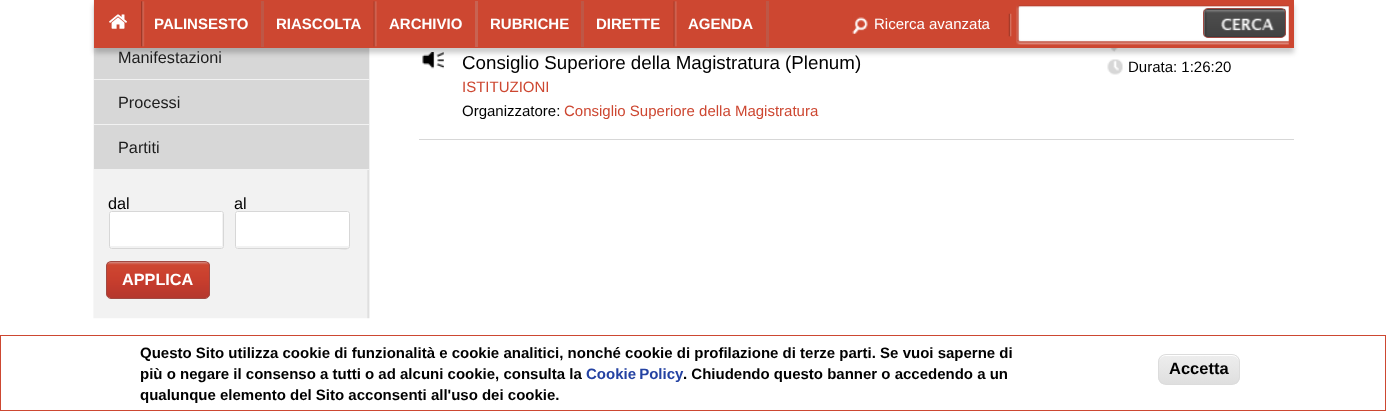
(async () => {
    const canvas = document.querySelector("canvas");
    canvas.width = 1386;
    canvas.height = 411;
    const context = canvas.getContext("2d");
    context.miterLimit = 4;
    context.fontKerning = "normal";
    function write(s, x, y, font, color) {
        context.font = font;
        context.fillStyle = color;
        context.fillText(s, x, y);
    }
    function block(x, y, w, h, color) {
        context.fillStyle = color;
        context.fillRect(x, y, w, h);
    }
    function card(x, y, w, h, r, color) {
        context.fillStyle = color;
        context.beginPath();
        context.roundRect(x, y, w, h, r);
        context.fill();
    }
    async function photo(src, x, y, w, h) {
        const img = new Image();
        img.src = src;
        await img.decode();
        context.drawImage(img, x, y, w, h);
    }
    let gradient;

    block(0, 0, 1386, 411, "rgb(255, 255, 255)");
    await photo("media/8.png", 93, 0, 277, 319);
    block(94, 48, 275, 31, "rgb(215, 215, 215)");
    await photo("media/10.png", 422, 52, 22, 17);
    await photo("media/11.png", 1110, 48, 8, 4);
    await photo("media/12.png", 1107, 59, 16, 16);
    context.fillStyle = "rgba(0, 0, 0, 0.2)";
    context.filter = "blur(2.5px)";
    context.beginPath();
    context.rect(94, 5, 1200, 48);
    context.fill();
    context.filter = "none";
    block(94, 0, 1200, 48, "rgb(205, 71, 49)");
    await photo("media/1.png", 109, 14, 18, 15);
    await photo("media/2.png", 141, 1, 4, 46);
    block(261, 1, 3, 46, "rgb(190, 87, 70)");
    write("PALINSESTO", 154, 29, "bold 15px Liberation Sans", "rgb(255, 255, 255)");
    await photo("media/3.png", 373, 1, 4, 46);
    write("RIASCOLTA", 276, 29, "bold 15px Liberation Sans", "rgb(255, 255, 255)");
    block(475, 1, 3, 46, "rgb(200, 99, 82)");
    write("ARCHIVIO", 389, 29, "bold 15px Liberation Sans", "rgb(255, 255, 255)");
    block(581, 1, 3, 46, "rgb(190, 87, 70)");
    write("RUBRICHE", 490, 29, "bold 15px Liberation Sans", "rgb(255, 255, 255)");
    await photo("media/4.png", 673, 1, 4, 46);
    write("DIRETTE", 596, 29, "bold 15px Liberation Sans", "rgb(255, 255, 255)");
    block(766, 1, 3, 46, "rgb(190, 87, 70)");
    write("AGENDA", 688, 29, "bold 15px Liberation Sans", "rgb(255, 255, 255)");
    await photo("media/5.png", 852, 13, 160, 24);
    write("Ricerca avanzata", 874, 29, "15px Liberation Sans", "rgb(255, 255, 255)");
    await photo("media/6.png", 1016, 5, 273, 40);
    await photo("media/7.png", 1203, 8, 83, 30);
    context.beginPath();
    context.roundRect(1203.5, 8.5, 82, 29, 4.5);
    context.strokeStyle = "rgb(161, 73, 66)";
    context.stroke();
    block(367, 79, 2, 1, "rgb(242, 242, 242)");
    write("Manifestazioni", 118, 63, "16.25px Liberation Sans", "rgb(29, 29, 29)");
    block(94, 80, 275, 44, "rgb(215, 215, 215)");
    block(367, 124, 2, 1, "rgb(242, 242, 242)");
    write("Processi", 118, 108, "16.25px Liberation Sans", "rgb(29, 29, 29)");
    block(94, 125, 275, 44, "rgb(215, 215, 215)");
    block(367, 169, 2, 1, "rgb(242, 242, 242)");
    write("Partiti", 118, 153, "16.25px Liberation Sans", "rgb(29, 29, 29)");
    write("dal", 108, 209, "16.25px Liberation Sans", "rgb(0, 0, 0)");
    card(109, 211, 115, 38, 2.5, "rgb(255, 255, 255)");
    context.fillStyle = "rgb(242, 242, 242)";
    context.beginPath();
    context.moveTo(110, 245);
    context.lineTo(110, 247);
    context.bezierCurveTo(110, 248, 110, 248, 111, 248);
    context.lineTo(222, 248);
    context.bezierCurveTo(223, 248, 223, 248, 223, 247);
    context.lineTo(223, 214);
    context.bezierCurveTo(223, 213, 223, 213, 222, 213);
    context.lineTo(222, 245);
    context.bezierCurveTo(222, 246, 222, 246, 221, 246);
    context.lineTo(111, 246);
    context.bezierCurveTo(111, 246, 110, 246, 110, 245);
    context.closePath();
    context.fill();
    context.beginPath();
    context.roundRect(109.5, 211.5, 114, 37, 2);
    context.strokeStyle = "rgb(215, 215, 215)";
    context.stroke();
    write("al", 234, 209, "16.25px Liberation Sans", "rgb(0, 0, 0)");
    card(235, 211, 115, 38, 2.5, "rgb(255, 255, 255)");
    context.fillStyle = "rgba(0, 0, 0, 0.05)";
    context.beginPath();
    context.moveTo(236, 245);
    context.bezierCurveTo(236, 246, 236, 247, 237, 248);
    context.lineTo(330, 248);
    context.bezierCurveTo(340, 248, 349, 254, 349, 245);
    context.lineTo(348, 246);
    context.lineTo(238, 246);
    context.bezierCurveTo(237, 246, 236, 246, 236, 245);
    context.closePath();
    context.fill();
    context.beginPath();
    context.roundRect(235.5, 211.5, 114, 37, 2);
    context.stroke();
    await photo("media/9.png", 106, 262, 104, 36);
    context.beginPath();
    context.roundRect(106.5, 261.5, 103, 37, 4.5);
    context.strokeStyle = "rgb(161, 73, 66)";
    context.stroke();
    write("APPLICA", 122, 285, "bold 16.25px Liberation Sans", "rgb(255, 255, 255)");
    block(419, 139, 875, 1, "rgb(215, 215, 215)");
    write("Consiglio Superiore della Magistratura (Plenum)", 462, 69, "18.75px Liberation Sans", "rgb(0, 0, 0)");
    write("ISTITUZIONI", 462, 92, "15px Liberation Sans", "rgb(205, 71, 49)");
    write("Organizzatore:", 462, 116, "15px Liberation Sans", "rgb(0, 0, 0)");
    write("Consiglio Superiore della Magistratura", 564, 116, "15px Liberation Sans", "rgb(205, 71, 49)");
    write("Durata: 1:26:20", 1128, 72, "15px Liberation Sans", "rgb(0, 0, 0)");
    context.strokeStyle = "rgb(205, 71, 49)";
    context.strokeRect(0.5, 335.5, 1385, 75);
    write("Questo Sito utilizza cookie di funzionalità e cookie analitici, nonché cookie di profilazione di terze parti. Se vuoi saperne di", 140, 358, "bold 15px Liberation Sans", "rgb(0, 0, 0)");
    write("più o negare il consenso a tutti o ad alcuni cookie, consulta la", 140, 379, "bold 15px Liberation Sans", "rgb(0, 0, 0)");
    context.wordSpacing = "-1px";
    write("Cookie Policy", 586, 379, "bold 15px Liberation Sans", "rgb(36, 66, 162)");
    context.wordSpacing = "0px";
    write(". Chiudendo questo banner o accedendo a un", 683, 379, "bold 15px Liberation Sans", "rgb(0, 0, 0)");
    write("qualunque elemento del Sito acconsenti all'uso dei cookie.", 140, 400, "bold 15px Liberation Sans", "rgb(0, 0, 0)");
    context.save();
    context.beginPath();
    context.roundRect(1158, 354, 82, 31, 8);
    context.clip();
    gradient = context.createLinearGradient(1199, 355, 1199, 384);
    gradient.addColorStop(0.05, "rgb(237, 237, 237)");
    gradient.addColorStop(1, "rgb(223, 223, 223)");
    context.fillStyle = gradient;
    context.fillRect(1158, 355, 82, 29);
    context.restore();
    context.fillStyle = "rgb(255, 255, 255)";
    context.beginPath();
    context.moveTo(1165, 356);
    context.lineTo(1232, 356);
    context.bezierCurveTo(1236, 356, 1239, 359, 1239, 362);
    context.bezierCurveTo(1239, 352, 1228, 355, 1222, 355);
    context.lineTo(1176, 355);
    context.bezierCurveTo(1170, 355, 1159, 352, 1159, 362);
    context.bezierCurveTo(1159, 359, 1162, 356, 1165, 356);
    context.closePath();
    context.fill();
    context.beginPath();
    context.roundRect(1158.5, 354.5, 81, 30, 7.5);
    context.strokeStyle = "rgb(220, 220, 220)";
    context.stroke();
    write("Accetta", 1169, 374, "bold 16.5px Liberation Sans", "rgb(0, 0, 0)");
})();
